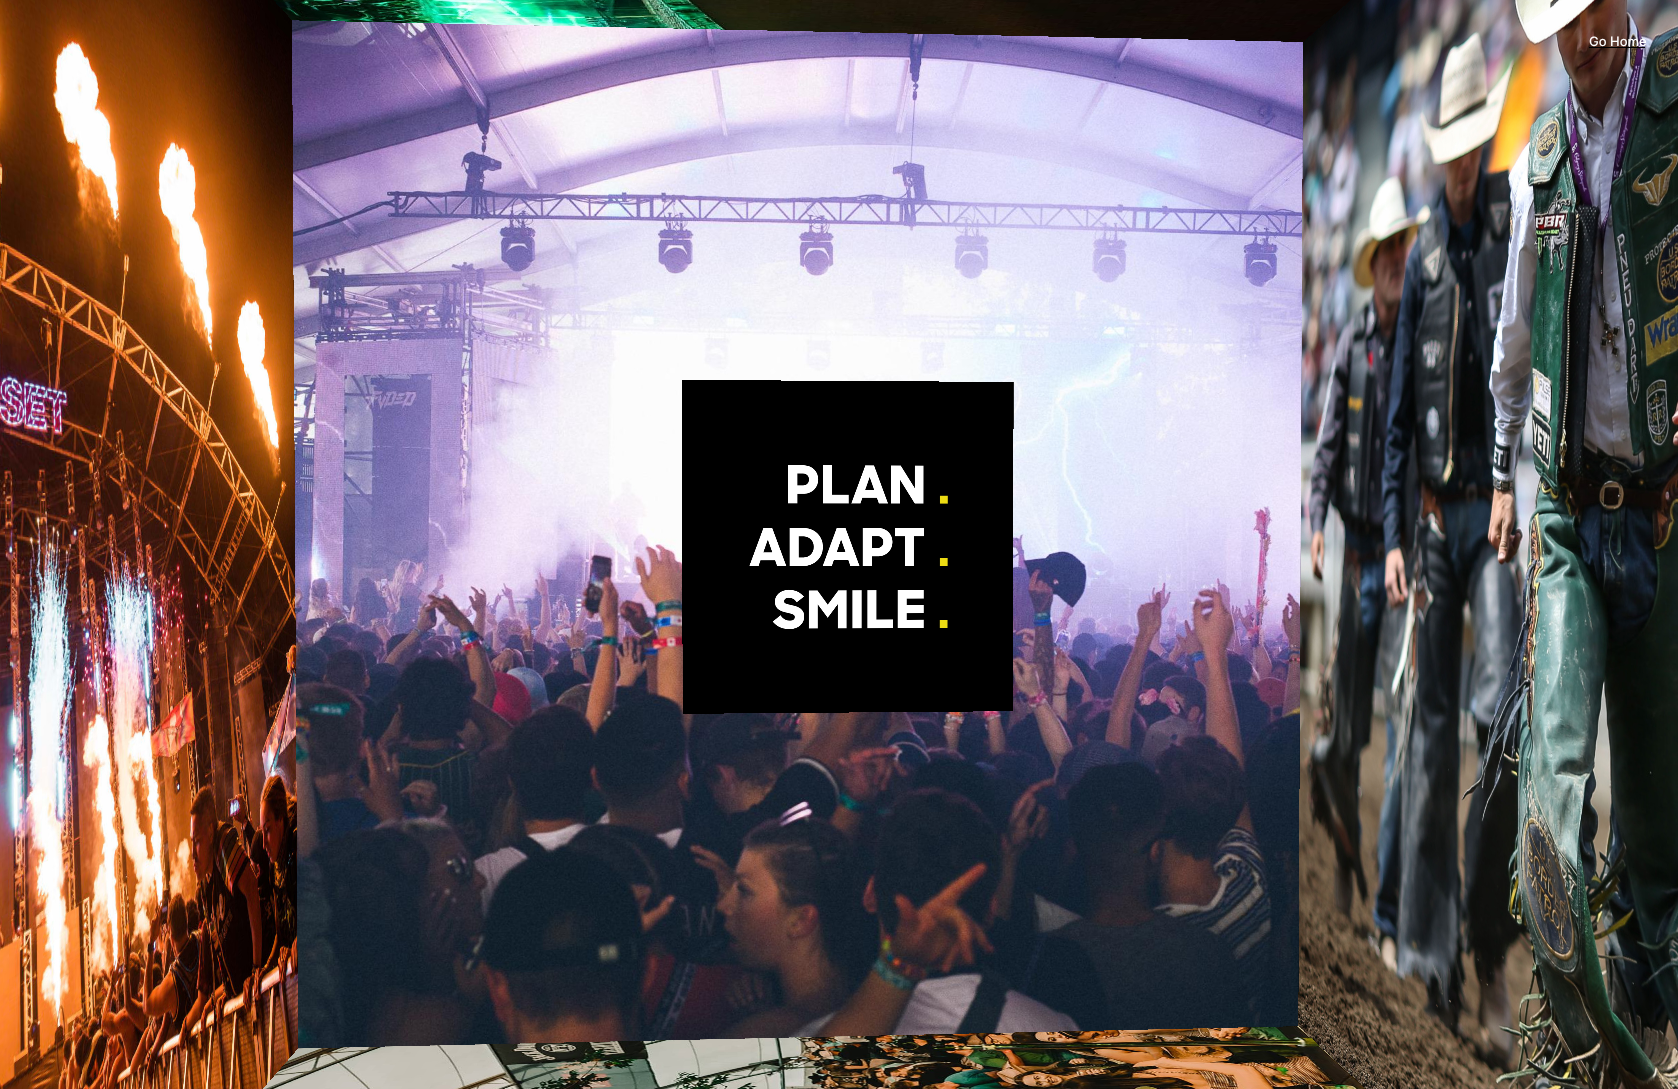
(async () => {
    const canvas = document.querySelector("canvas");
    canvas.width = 1678;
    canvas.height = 1089;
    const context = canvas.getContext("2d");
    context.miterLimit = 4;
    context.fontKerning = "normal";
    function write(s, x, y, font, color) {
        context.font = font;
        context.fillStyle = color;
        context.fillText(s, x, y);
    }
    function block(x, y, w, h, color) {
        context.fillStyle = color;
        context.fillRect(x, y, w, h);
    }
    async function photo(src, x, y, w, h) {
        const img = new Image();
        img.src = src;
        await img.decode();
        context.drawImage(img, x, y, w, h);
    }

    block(0, 0, 1678, 1089, "rgb(0, 0, 0)");
    await photo("media/4.png", 292, 20, 1011, 1028);
    await photo("media/1.png", 0, 0, 298, 1089);
    await photo("media/3.png", 1298, 0, 380, 1089);
    await photo("media/2.png", 274, 0, 1076, 42);
    await photo("media/5.png", 682, 380, 332, 334);
    await photo("media/6.png", 263, 1026, 1103, 63);
    write("Go Home", 1589, 46, "500 13px Inter", "rgb(255, 255, 255)");
    block(1589, 47, 56, 1, "rgb(0, 0, 0)");
})();
